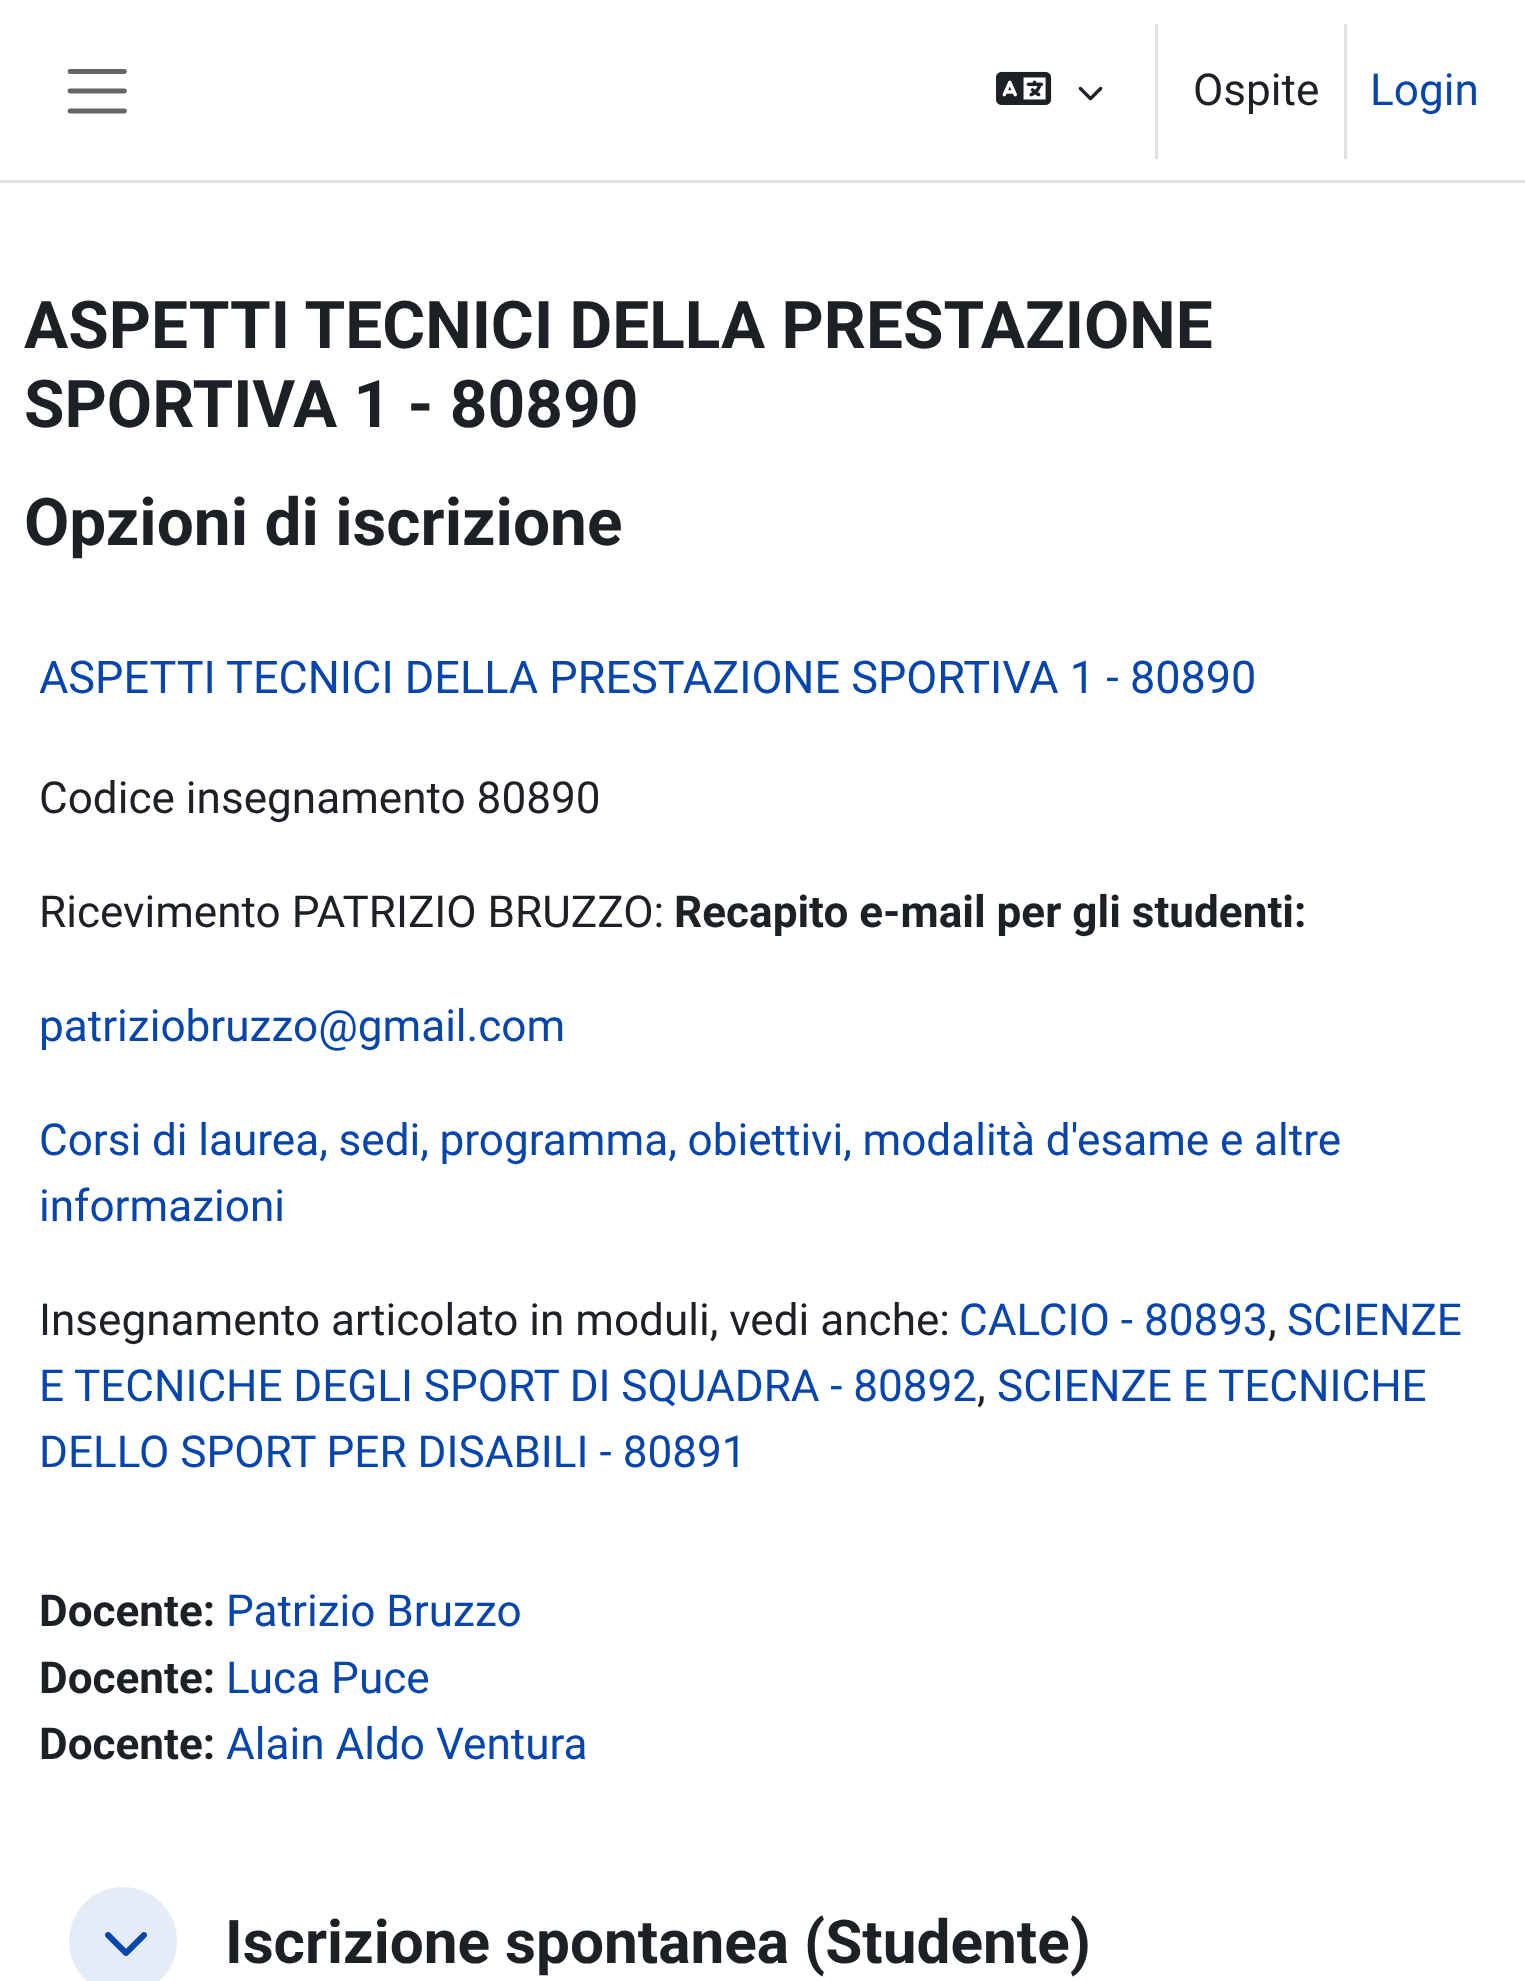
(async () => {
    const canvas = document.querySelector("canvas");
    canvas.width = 1525;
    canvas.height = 1981;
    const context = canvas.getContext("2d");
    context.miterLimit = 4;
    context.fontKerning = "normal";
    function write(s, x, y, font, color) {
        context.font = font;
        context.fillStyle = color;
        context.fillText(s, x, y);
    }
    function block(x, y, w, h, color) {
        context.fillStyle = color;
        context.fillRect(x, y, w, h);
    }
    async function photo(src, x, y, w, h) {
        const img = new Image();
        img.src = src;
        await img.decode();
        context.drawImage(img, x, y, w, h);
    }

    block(0, 0, 1525, 1981, "rgb(255, 255, 255)");
    block(0, 180, 1525, 3, "rgb(222, 226, 230)");
    context.beginPath();
    context.moveTo(70, 71.5);
    context.lineTo(124.5, 71.5);
    context.moveTo(70, 91);
    context.lineTo(124.5, 91);
    context.moveTo(70, 111);
    context.lineTo(124.5, 111);
    context.strokeStyle = "rgb(102, 102, 102)";
    context.lineWidth = 4.9;
    context.lineCap = "round";
    context.stroke();
    await photo("media/1.png", 996, 71, 56, 34);
    await photo("media/2.png", 1078, 86, 25, 15);
    block(1155, 24, 3, 135, "rgb(222, 226, 230)");
    write("Ospite", 1193, 105, "44.1px Roboto", "rgb(29, 33, 37)");
    block(1344, 24, 3, 135, "rgb(222, 226, 230)");
    write("Login", 1370, 105, "44.1px Roboto", "rgb(6, 69, 173)");
    write("ASPETTI TECNICI DELLA PRESTAZIONE", 24, 348, "bold 65.75px Roboto", "rgb(29, 33, 37)");
    write("SPORTIVA 1 - 80890", 24, 427, "bold 65.75px Roboto", "rgb(29, 33, 37)");
    write("Opzioni di iscrizione", 24, 545, "bold 65.75px Roboto", "rgb(29, 33, 37)");
    write("ASPETTI TECNICI DELLA PRESTAZIONE SPORTIVA 1 - 80890", 39, 693, "45px Roboto", "rgb(6, 69, 173)");
    write("Codice insegnamento 80890", 39, 813, "44.1px Roboto", "rgb(29, 33, 37)");
    write("Ricevimento PATRIZIO BRUZZO:", 39, 927, "44.1px Roboto", "rgb(29, 33, 37)");
    write("Recapito e-mail per gli studenti:", 674, 927, "bold 44.1px Roboto", "rgb(29, 33, 37)");
    write("patriziobruzzo@gmail.com", 39, 1041, "44.1px Roboto", "rgb(6, 69, 173)");
    context.wordSpacing = "-0.25px";
    write("Corsi di laurea, sedi, programma, obiettivi, modalità d'esame e altre", 39, 1155, "44.1px Roboto", "rgb(6, 69, 173)");
    context.wordSpacing = "0px";
    write("informazioni", 39, 1221, "44.1px Roboto", "rgb(6, 69, 173)");
    write("Insegnamento articolato in moduli, vedi anche:", 39, 1335, "44.1px Roboto", "rgb(29, 33, 37)");
    write("CALCIO - 80893", 959, 1335, "44.1px Roboto", "rgb(6, 69, 173)");
    write(",", 1268, 1335, "44.1px Roboto", "rgb(29, 33, 37)");
    write("SCIENZE", 1287, 1335, "44.1px Roboto", "rgb(6, 69, 173)");
    context.wordSpacing = "-0.25px";
    write("E TECNICHE DEGLI SPORT DI SQUADRA - 80892", 39, 1401, "44.1px Roboto", "rgb(6, 69, 173)");
    context.wordSpacing = "0px";
    write(",", 977, 1401, "44.1px Roboto", "rgb(29, 33, 37)");
    write("SCIENZE E TECNICHE", 997, 1401, "44.1px Roboto", "rgb(6, 69, 173)");
    write("DELLO SPORT PER DISABILI - 80891", 39, 1467, "44.1px Roboto", "rgb(6, 69, 173)");
    write("Docente:", 39, 1626, "bold 44.1px Roboto", "rgb(29, 33, 37)");
    write("Patrizio Bruzzo", 226, 1626, "44.1px Roboto", "rgb(6, 69, 173)");
    write("Docente:", 39, 1693, "bold 44.1px Roboto", "rgb(29, 33, 37)");
    write("Luca Puce", 226, 1693, "44.1px Roboto", "rgb(6, 69, 173)");
    write("Docente:", 39, 1759, "bold 44.1px Roboto", "rgb(29, 33, 37)");
    write("Alain Aldo Ventura", 226, 1759, "44.1px Roboto", "rgb(6, 69, 173)");
    context.fillStyle = "rgb(230, 236, 247)";
    context.beginPath();
    context.arc(123, 1941, 54, 0, Math.PI * 2);
    context.fill();
    await photo("media/3.png", 105, 1932, 42, 24);
    write("Iscrizione spontanea (Studente)", 225, 1963, "bold 60.3px Roboto", "rgb(29, 33, 37)");
})();
